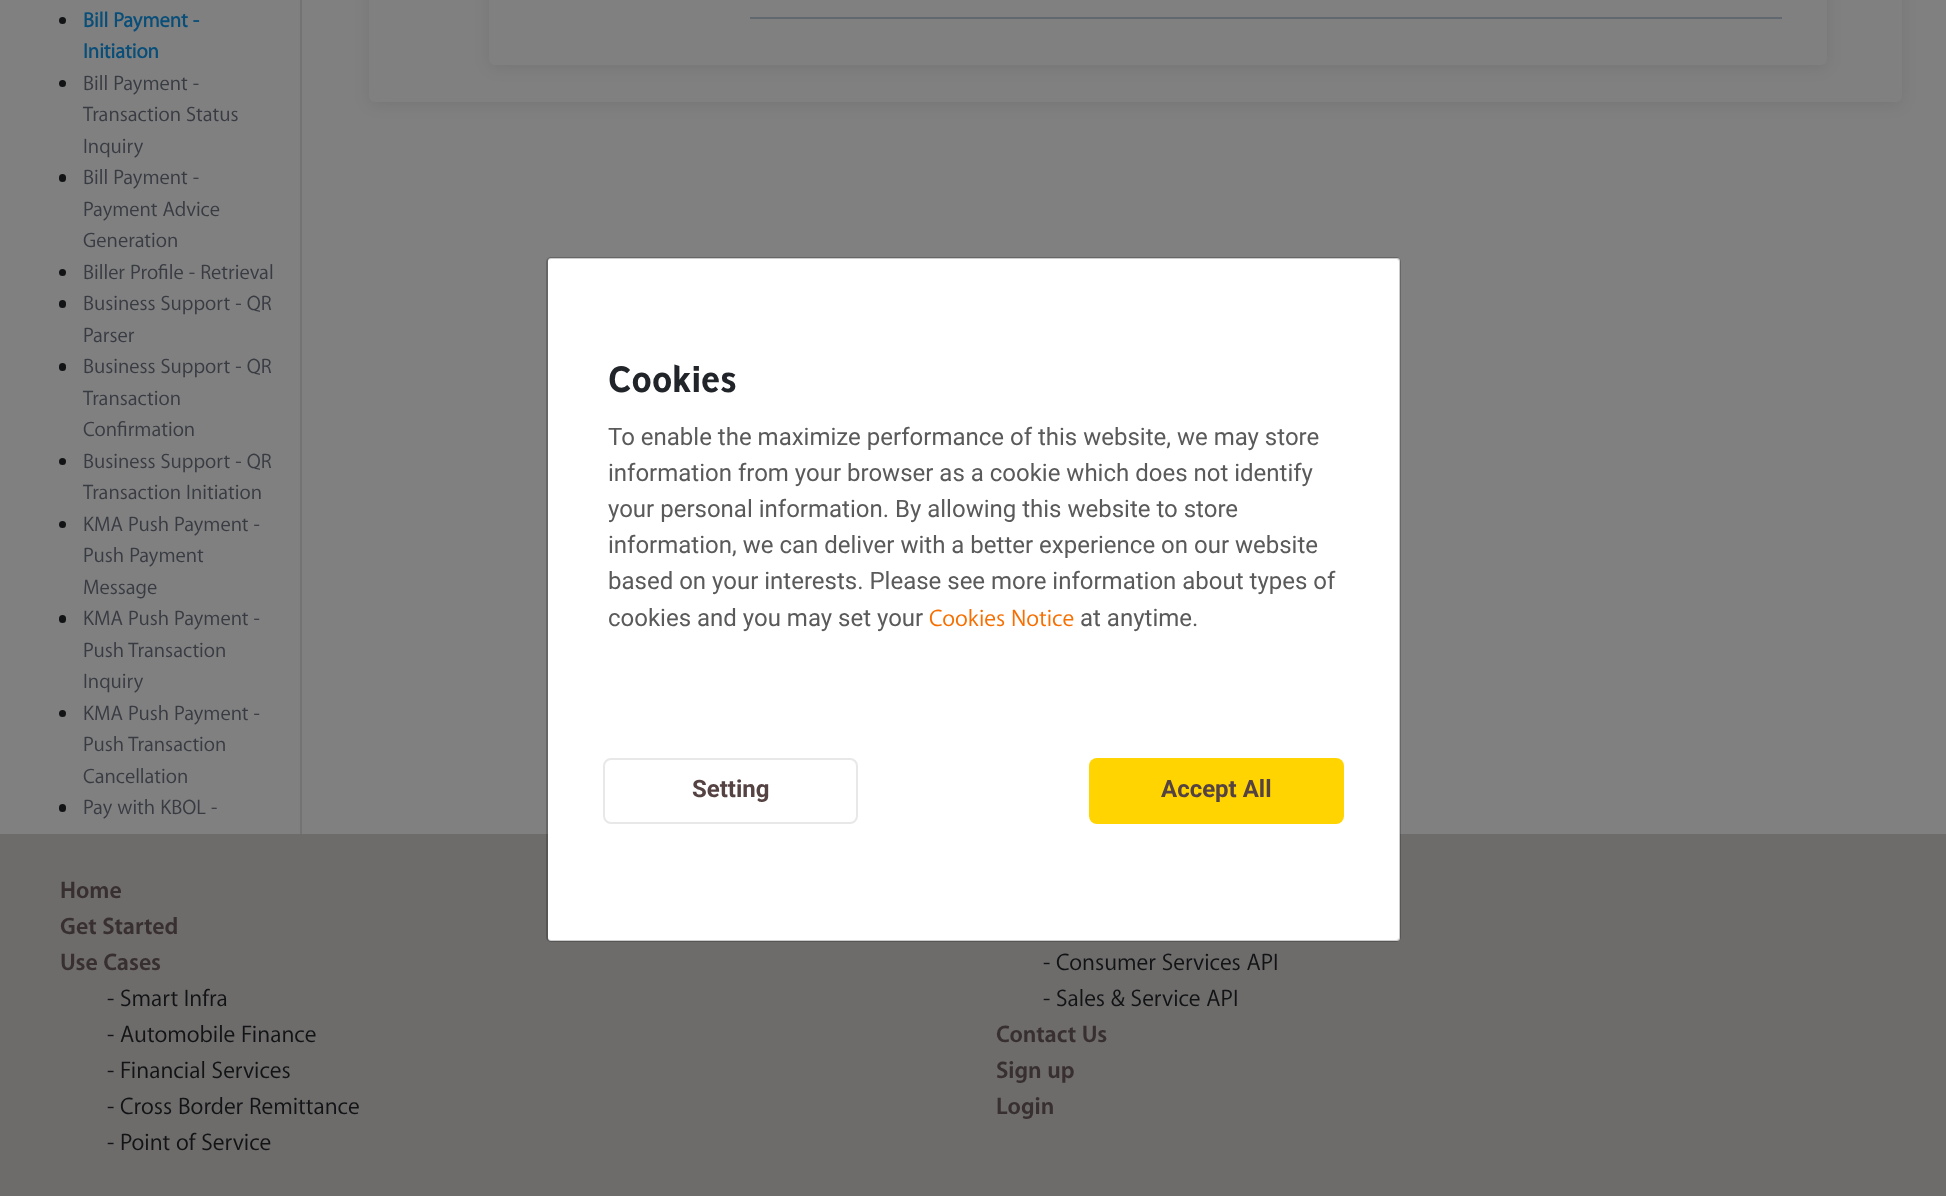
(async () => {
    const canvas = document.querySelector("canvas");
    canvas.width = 1946;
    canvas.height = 1196;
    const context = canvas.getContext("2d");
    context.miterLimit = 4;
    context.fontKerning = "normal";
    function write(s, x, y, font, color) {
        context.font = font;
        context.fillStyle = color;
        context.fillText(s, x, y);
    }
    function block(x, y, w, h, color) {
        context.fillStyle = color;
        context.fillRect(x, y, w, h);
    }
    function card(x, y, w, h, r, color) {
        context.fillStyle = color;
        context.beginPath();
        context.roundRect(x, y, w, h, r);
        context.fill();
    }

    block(0, 0, 1946, 1196, "rgb(128, 128, 128)");
    block(300, 0, 2, 834, "rgb(115, 115, 115)");
    context.fillStyle = "rgb(17, 19, 21)";
    context.beginPath();
    context.arc(62.5, 20.5, 3.5, 0, Math.PI * 2);
    context.fill();
    write("Bill Payment -", 83, 27, "bold 21px 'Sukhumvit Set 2'", "rgb(8, 78, 121)");
    write("Initiation", 83, 58, "bold 21px 'Sukhumvit Set 2'", "rgb(8, 78, 121)");
    context.fillStyle = "rgb(17, 19, 21)";
    context.beginPath();
    context.arc(62.5, 83.5, 3.5, 0, Math.PI * 2);
    context.fill();
    write("Bill Payment -", 83, 90, "21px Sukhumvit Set", "rgb(56, 59, 66)");
    write("Transaction Status", 83, 121, "21px Sukhumvit Set", "rgb(56, 59, 66)");
    write("Inquiry", 83, 153, "21px Sukhumvit Set", "rgb(56, 59, 66)");
    card(59, 174, 7, 8, 3.5, "rgb(17, 19, 21)");
    write("Bill Payment -", 83, 184, "21px Sukhumvit Set", "rgb(56, 59, 66)");
    write("Payment Advice", 83, 216, "21px Sukhumvit Set", "rgb(56, 59, 66)");
    write("Generation", 83, 247, "21px Sukhumvit Set", "rgb(56, 59, 66)");
    context.fillStyle = "rgb(17, 19, 21)";
    context.beginPath();
    context.arc(62.5, 272.5, 3.5, 0, Math.PI * 2);
    context.fill();
    write("Biller Profile - Retrieval", 83, 279, "21px Sukhumvit Set", "rgb(56, 59, 66)");
    card(59, 300, 7, 8, 3.5, "rgb(17, 19, 21)");
    write("Business Support - QR", 83, 310, "21px Sukhumvit Set", "rgb(56, 59, 66)");
    write("Parser", 83, 342, "21px Sukhumvit Set", "rgb(56, 59, 66)");
    card(59, 363, 7, 8, 3.5, "rgb(17, 19, 21)");
    write("Business Support - QR", 83, 373, "21px Sukhumvit Set", "rgb(56, 59, 66)");
    write("Transaction", 83, 405, "21px Sukhumvit Set", "rgb(56, 59, 66)");
    write("Confirmation", 83, 436, "21px Sukhumvit Set", "rgb(56, 59, 66)");
    context.fillStyle = "rgb(17, 19, 21)";
    context.beginPath();
    context.arc(62.5, 461.5, 3.5, 0, Math.PI * 2);
    context.fill();
    write("Business Support - QR", 83, 468, "21px Sukhumvit Set", "rgb(56, 59, 66)");
    write("Transaction Initiation", 83, 499, "21px Sukhumvit Set", "rgb(56, 59, 66)");
    context.fillStyle = "rgb(17, 19, 21)";
    context.beginPath();
    context.arc(62.5, 524.5, 3.5, 0, Math.PI * 2);
    context.fill();
    write("KMA Push Payment -", 83, 531, "21px Sukhumvit Set", "rgb(56, 59, 66)");
    write("Push Payment", 83, 562, "21px Sukhumvit Set", "rgb(56, 59, 66)");
    write("Message", 83, 594, "21px Sukhumvit Set", "rgb(56, 59, 66)");
    card(59, 615, 7, 8, 3.5, "rgb(17, 19, 21)");
    write("KMA Push Payment -", 83, 625, "21px Sukhumvit Set", "rgb(56, 59, 66)");
    write("Push Transaction", 83, 657, "21px Sukhumvit Set", "rgb(56, 59, 66)");
    write("Inquiry", 83, 688, "21px Sukhumvit Set", "rgb(56, 59, 66)");
    context.fillStyle = "rgb(17, 19, 21)";
    context.beginPath();
    context.arc(62.5, 713.5, 3.5, 0, Math.PI * 2);
    context.fill();
    write("KMA Push Payment -", 83, 720, "21px Sukhumvit Set", "rgb(56, 59, 66)");
    write("Push Transaction", 83, 751, "21px Sukhumvit Set", "rgb(56, 59, 66)");
    write("Cancellation", 83, 783, "21px Sukhumvit Set", "rgb(56, 59, 66)");
    card(59, 804, 7, 8, 3.5, "rgb(17, 19, 21)");
    write("Pay with KBOL -", 83, 814, "21px Sukhumvit Set", "rgb(56, 59, 66)");
    context.fillStyle = "rgba(0, 0, 0, 0.08)";
    context.filter = "blur(7.5px)";
    context.beginPath();
    context.roundRect(369, -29, 1533, 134, 6);
    context.fill();
    context.filter = "none";
    context.fillStyle = "rgb(128, 128, 128)";
    context.beginPath();
    context.moveTo(369, -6);
    context.lineTo(1902, -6);
    context.lineTo(1902, 96);
    context.bezierCurveTo(1902, 99.5, 1899.5, 102, 1896, 102);
    context.lineTo(375, 102);
    context.bezierCurveTo(371.5, 102, 369, 99.5, 369, 96);
    context.closePath();
    context.fill();
    context.fillStyle = "rgba(0, 0, 0, 0.08)";
    context.filter = "blur(7.5px)";
    context.beginPath();
    context.roundRect(489, -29, 1338, 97, 6);
    context.fill();
    context.filter = "none";
    context.fillStyle = "rgb(128, 128, 128)";
    context.beginPath();
    context.moveTo(489, -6);
    context.lineTo(1827, -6);
    context.lineTo(1827, 59);
    context.bezierCurveTo(1827, 62.5, 1824.5, 65, 1821, 65);
    context.lineTo(495, 65);
    context.bezierCurveTo(491.5, 65, 489, 62.5, 489, 59);
    context.closePath();
    context.fill();
    block(750, 17, 1032, 2, "rgb(97, 104, 112)");
    block(0, 834, 1946, 362, "rgb(110, 107, 107)");
    card(548, 258, 852, 683, 3, "rgb(255, 255, 255)");
    context.beginPath();
    context.roundRect(547, 258, 853, 683, 4);
    context.strokeStyle = "rgba(0, 0, 0, 0.2)";
    context.lineWidth = 2;
    context.stroke();
    write("Cookies", 608, 392, "bold 36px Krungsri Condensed", "rgb(33, 37, 41)");
    write("To enable the maximize performance of this website, we may store", 608, 445, "24px Roboto", "rgb(90, 90, 90)");
    write("information from your browser as a cookie which does not identify", 608, 481, "24px Roboto", "rgb(90, 90, 90)");
    write("your personal information. By allowing this website to store", 608, 517, "24px Roboto", "rgb(90, 90, 90)");
    write("information, we can deliver with a better experience on our website", 608, 553, "24px Roboto", "rgb(90, 90, 90)");
    write("based on your interests. Please see more information about types of", 608, 589, "24px Roboto", "rgb(90, 90, 90)");
    write("cookies and you may set your", 608, 626, "24px Roboto", "rgb(90, 90, 90)");
    write("Cookies Notice", 929, 626, "24px Sukhumvit Set", "rgb(247, 111, 0)");
    write("at anytime.", 1080, 626, "24px Roboto", "rgb(90, 90, 90)");
    context.beginPath();
    context.roundRect(604, 759, 253, 64, 7);
    context.strokeStyle = "rgb(232, 232, 232)";
    context.stroke();
    write("Setting", 692, 797, "bold 24px Roboto", "rgb(85, 66, 66)");
    card(1089, 758, 255, 66, 8, "rgb(255, 212, 0)");
    write("Accept All", 1161, 797, "bold 24px Roboto", "rgb(85, 66, 66)");
    write("Home", 60, 898, "bold 24px Sukhumvit Set", "rgb(56, 48, 48)");
    write("Get Started", 60, 934, "bold 24px Sukhumvit Set", "rgb(56, 48, 48)");
    write("Use Cases", 60, 970, "bold 24px Sukhumvit Set", "rgb(56, 48, 48)");
    write("- Smart Infra", 107, 1006, "24px Sukhumvit Set", "rgb(17, 19, 21)");
    write("- Automobile Finance", 107, 1042, "24px Sukhumvit Set", "rgb(17, 19, 21)");
    write("- Financial Services", 107, 1078, "24px Sukhumvit Set", "rgb(17, 19, 21)");
    write("- Cross Border Remittance", 107, 1114, "24px Sukhumvit Set", "rgb(17, 19, 21)");
    write("- Point of Service", 107, 1150, "24px Sukhumvit Set", "rgb(17, 19, 21)");
    write("- Consumer Services API", 1043, 970, "24px Sukhumvit Set", "rgb(17, 19, 21)");
    write("- Sales & Service API", 1043, 1006, "24px Sukhumvit Set", "rgb(17, 19, 21)");
    write("Contact Us", 996, 1042, "bold 24px Sukhumvit Set", "rgb(56, 48, 48)");
    write("Sign up", 996, 1078, "bold 24px Sukhumvit Set", "rgb(56, 48, 48)");
    write("Login", 996, 1114, "bold 24px Sukhumvit Set", "rgb(56, 48, 48)");
})();
